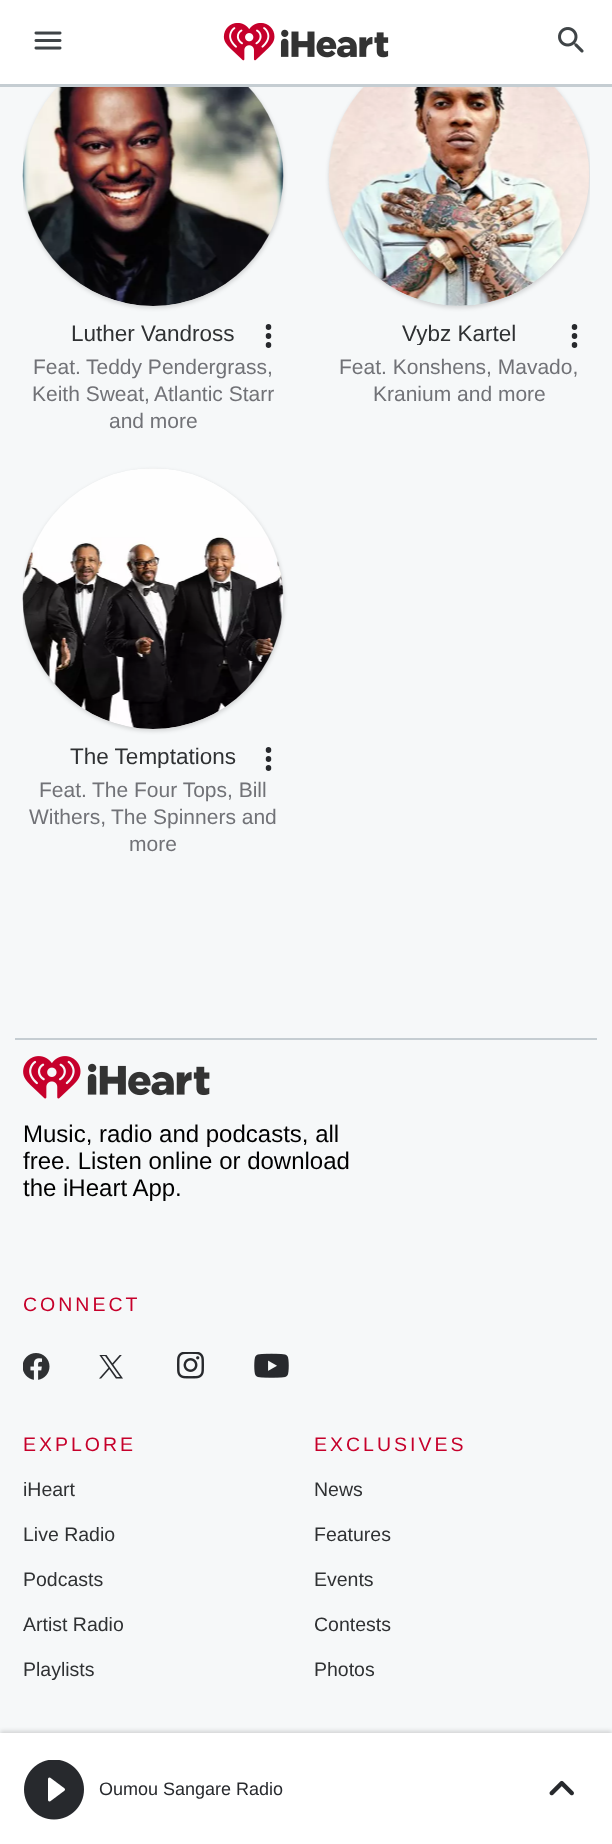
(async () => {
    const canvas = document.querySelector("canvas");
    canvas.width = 612;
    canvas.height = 1844;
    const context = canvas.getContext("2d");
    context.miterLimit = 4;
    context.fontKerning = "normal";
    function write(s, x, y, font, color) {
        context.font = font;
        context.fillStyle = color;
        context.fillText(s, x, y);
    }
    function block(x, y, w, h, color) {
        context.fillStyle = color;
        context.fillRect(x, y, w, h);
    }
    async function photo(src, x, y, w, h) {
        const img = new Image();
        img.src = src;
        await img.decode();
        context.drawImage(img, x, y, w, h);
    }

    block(0, 0, 612, 1844, "rgb(246, 248, 249)");
    context.save();
    context.beginPath();
    context.rect(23, 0, 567, 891);
    context.clip();
    context.fillStyle = "rgba(0, 0, 0, 0.15)";
    context.filter = "blur(2px)";
    context.beginPath();
    context.roundRect(23, 47, 261, 261, 130.5);
    context.fill();
    context.filter = "none";
    context.filter = "blur(2px)";
    context.beginPath();
    context.roundRect(329, 47, 261, 261, 130.5);
    context.fill();
    context.filter = "none";
    context.restore();
    block(0, 0, 612, 84, "rgb(255, 255, 255)");
    block(0, 84, 612, 3, "rgb(197, 205, 210)");
    await photo("media/1.png", 34, 31, 28, 19);
    await photo("media/2.png", 223, 23, 166, 38);
    await photo("media/3.png", 558, 27, 26, 26);
    await photo("media/4.png", 22, 87, 262, 219);
    write("Luther Vandross", 71, 341, "22.5px Liberation Sans", "rgb(47, 49, 51)");
    await photo("media/5.png", 265, 324, 7, 24);
    write("Feat.", 33, 374, "21px Liberation Sans", "rgb(113, 114, 119)");
    write("Teddy Pendergrass,", 86, 374, "21px Liberation Sans", "rgb(113, 114, 119)");
    write("Keith Sweat,", 32, 401, "21px Liberation Sans", "rgb(113, 114, 119)");
    write("Atlantic Starr", 154, 401, "21px Liberation Sans", "rgb(113, 114, 119)");
    write("and more", 109, 428, "21px Liberation Sans", "rgb(113, 114, 119)");
    await photo("media/6.png", 328, 87, 262, 219);
    context.save();
    context.beginPath();
    context.rect(363, 320, 194, 25);
    context.clip();
    write("Vybz Kartel", 402, 341, "22.5px Liberation Sans", "rgb(47, 49, 51)");
    context.restore();
    await photo("media/5.png", 571, 324, 7, 24);
    write("Feat. Konshens, Mavado,", 339, 374, "21px Liberation Sans", "rgb(113, 114, 119)");
    write("Kranium and more", 373, 401, "21px Liberation Sans", "rgb(113, 114, 119)");
    context.save();
    context.beginPath();
    context.rect(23, 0, 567, 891);
    context.clip();
    context.fillStyle = "rgba(0, 0, 0, 0.15)";
    context.filter = "blur(2px)";
    context.beginPath();
    context.roundRect(23, 470, 261, 261, 130.5);
    context.fill();
    context.filter = "none";
    context.restore();
    await photo("media/7.png", 22, 468, 262, 261);
    context.save();
    context.beginPath();
    context.rect(57, 743, 194, 25);
    context.clip();
    write("The Temptations", 70, 764, "22.5px Liberation Sans", "rgb(47, 49, 51)");
    context.restore();
    await photo("media/5.png", 265, 747, 7, 24);
    write("Feat.", 39, 797, "21px Liberation Sans", "rgb(113, 114, 119)");
    write("The Four Tops, Bill", 92, 797, "21px Liberation Sans", "rgb(113, 114, 119)");
    write("Withers,", 29, 824, "21px Liberation Sans", "rgb(113, 114, 119)");
    write("The Spinners and", 111, 824, "21px Liberation Sans", "rgb(113, 114, 119)");
    write("more", 129, 851, "21px Liberation Sans", "rgb(113, 114, 119)");
    block(15, 1038, 582, 2, "rgb(197, 205, 210)");
    await photo("media/8.png", 23, 1056, 187, 43);
    write("Music, radio and podcasts, all", 23, 1142, "24px Liberation Sans", "rgb(0, 0, 0)");
    write("free. Listen online or download", 23, 1169, "24px Liberation Sans", "rgb(0, 0, 0)");
    write("the iHeart App.", 23, 1196, "24px Liberation Sans", "rgb(0, 0, 0)");
    context.letterSpacing = "3px";
    write("CONNECT", 23, 1311, "19.5px Liberation Sans", "rgb(198, 0, 43)");
    await photo("media/9.png", 23, 1353, 27, 27);
    await photo("media/10.png", 99, 1355, 24, 24);
    await photo("media/11.png", 177, 1352, 27, 27);
    await photo("media/12.png", 254, 1353, 35, 25);
    write("EXPLORE", 23, 1451, "19.5px Liberation Sans", "rgb(198, 0, 43)");
    context.letterSpacing = "0px";
    write("iHeart", 23, 1496, "19.5px Liberation Sans", "rgb(47, 49, 51)");
    write("Live Radio", 23, 1541, "19.5px Liberation Sans", "rgb(47, 49, 51)");
    write("Podcasts", 23, 1586, "19.5px Liberation Sans", "rgb(47, 49, 51)");
    write("Artist Radio", 23, 1631, "19.5px Liberation Sans", "rgb(47, 49, 51)");
    write("Playlists", 23, 1676, "19.5px Liberation Sans", "rgb(47, 49, 51)");
    context.letterSpacing = "3px";
    write("EXCLUSIVES", 314, 1451, "19.5px Liberation Sans", "rgb(198, 0, 43)");
    context.letterSpacing = "0px";
    write("News", 314, 1496, "19.5px Liberation Sans", "rgb(47, 49, 51)");
    write("Features", 314, 1541, "19.5px Liberation Sans", "rgb(47, 49, 51)");
    write("Events", 314, 1586, "19.5px Liberation Sans", "rgb(47, 49, 51)");
    write("Contests", 314, 1631, "19.5px Liberation Sans", "rgb(47, 49, 51)");
    write("Photos", 314, 1676, "19.5px Liberation Sans", "rgb(47, 49, 51)");
    context.fillStyle = "rgba(0, 0, 0, 0.15)";
    context.filter = "blur(2px)";
    context.beginPath();
    context.rect(0, 1731, 612, 113);
    context.fill();
    context.filter = "none";
    block(0, 1733, 612, 111, "rgb(255, 255, 255)");
    await photo("media/13.png", 24, 1760, 60, 60);
    write("Oumou Sangare Radio", 99, 1795, "18px Liberation Sans", "rgb(39, 41, 45)");
    await photo("media/14.png", 549, 1780, 25, 16);
})();
